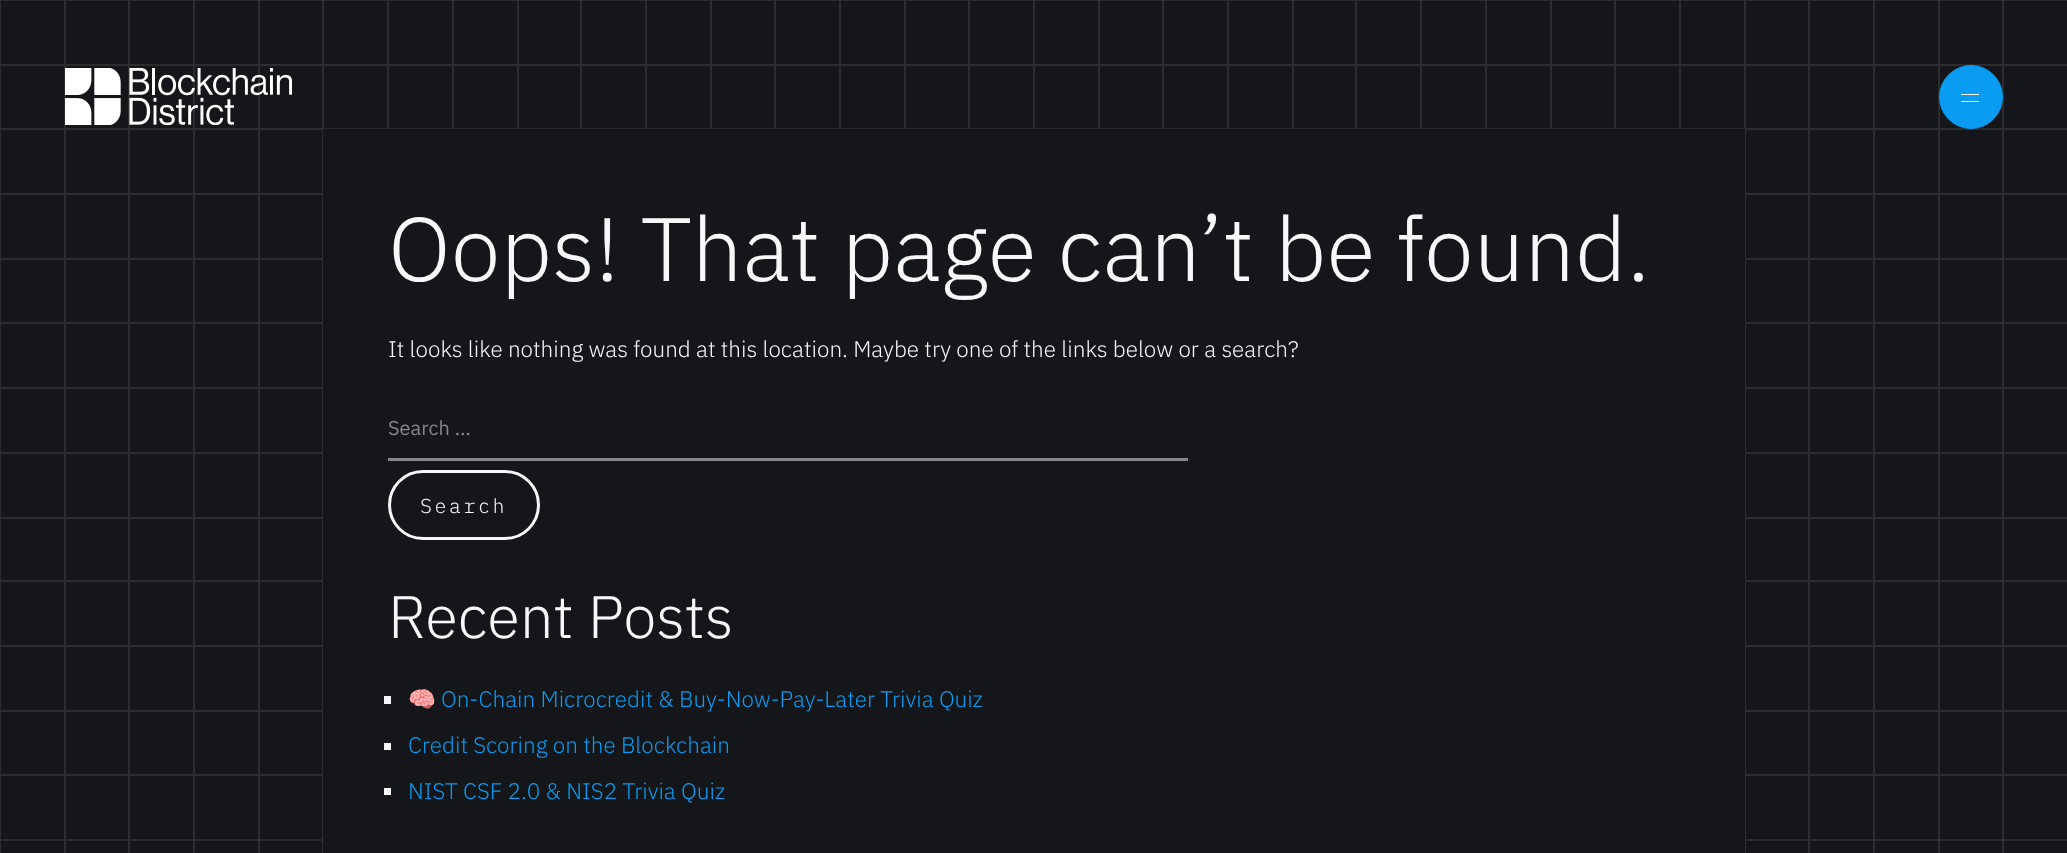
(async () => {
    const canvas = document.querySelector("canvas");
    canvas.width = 2067;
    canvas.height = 853;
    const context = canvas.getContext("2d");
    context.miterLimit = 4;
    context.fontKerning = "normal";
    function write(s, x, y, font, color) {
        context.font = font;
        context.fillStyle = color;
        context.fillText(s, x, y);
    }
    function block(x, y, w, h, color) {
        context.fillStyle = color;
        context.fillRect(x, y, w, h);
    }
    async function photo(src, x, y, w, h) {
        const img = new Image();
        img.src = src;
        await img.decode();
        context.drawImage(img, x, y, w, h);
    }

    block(0, 0, 2067, 853, "rgb(21, 22, 26)");
    context.strokeStyle = "rgb(44, 44, 46)";
    context.strokeRect(65.5, 65.5, 63, 63);
    context.strokeRect(129.5, 65.5, 64, 63);
    context.strokeRect(194.5, 65.5, 64, 63);
    context.strokeRect(259.5, 65.5, 63, 63);
    await photo("media/1.png", 65, 68, 228, 57);
    context.strokeRect(1939.5, 65.5, 63, 63);
    context.fillStyle = "rgb(9, 156, 242)";
    context.beginPath();
    context.arc(1971, 97, 31.5, 0, Math.PI * 2);
    context.fill();
    context.strokeStyle = "rgb(9, 156, 242)";
    context.stroke();
    block(1961, 94, 18, 1, "rgb(247, 247, 249)");
    block(1961, 101, 18, 1, "rgb(247, 247, 249)");
    context.strokeStyle = "rgb(44, 44, 46)";
    context.strokeRect(0.5, 0.5, 64, 64);
    context.strokeRect(65.5, 0.5, 63, 64);
    context.strokeRect(129.5, 0.5, 64, 64);
    context.strokeRect(194.5, 0.5, 64, 64);
    context.strokeRect(259.5, 0.5, 63, 64);
    context.strokeRect(323.5, 0.5, 64, 64);
    context.strokeRect(388.5, 0.5, 64, 64);
    context.strokeRect(453.5, 0.5, 64, 64);
    context.strokeRect(518.5, 0.5, 62, 64);
    context.strokeRect(581.5, 0.5, 64, 64);
    context.strokeRect(646.5, 0.5, 64, 64);
    context.strokeRect(711.5, 0.5, 63, 64);
    context.strokeRect(775.5, 0.5, 64, 64);
    context.strokeRect(840.5, 0.5, 64, 64);
    context.strokeRect(905.5, 0.5, 63, 64);
    context.strokeRect(969.5, 0.5, 64, 64);
    context.strokeRect(1034.5, 0.5, 64, 64);
    context.strokeRect(1099.5, 0.5, 63, 64);
    context.strokeRect(1163.5, 0.5, 64, 64);
    context.strokeRect(1228.5, 0.5, 64, 64);
    context.strokeRect(1293.5, 0.5, 62, 64);
    context.strokeRect(1356.5, 0.5, 64, 64);
    context.strokeRect(1421.5, 0.5, 64, 64);
    context.strokeRect(1486.5, 0.5, 64, 64);
    context.strokeRect(1551.5, 0.5, 63, 64);
    context.strokeRect(1615.5, 0.5, 64, 64);
    context.strokeRect(1680.5, 0.5, 64, 64);
    context.strokeRect(1745.5, 0.5, 63, 64);
    context.strokeRect(1809.5, 0.5, 64, 64);
    context.strokeRect(1874.5, 0.5, 64, 64);
    context.strokeRect(1939.5, 0.5, 63, 64);
    context.strokeRect(2003.5, 0.5, 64, 64);
    context.strokeRect(0.5, 65.5, 64, 63);
    context.strokeRect(323.5, 65.5, 64, 63);
    context.strokeRect(388.5, 65.5, 64, 63);
    context.strokeRect(453.5, 65.5, 64, 63);
    context.strokeRect(518.5, 65.5, 62, 63);
    context.strokeRect(581.5, 65.5, 64, 63);
    context.strokeRect(646.5, 65.5, 64, 63);
    context.strokeRect(711.5, 65.5, 63, 63);
    context.strokeRect(775.5, 65.5, 64, 63);
    context.strokeRect(840.5, 65.5, 64, 63);
    context.strokeRect(905.5, 65.5, 63, 63);
    context.strokeRect(969.5, 65.5, 64, 63);
    context.strokeRect(1034.5, 65.5, 64, 63);
    context.strokeRect(1099.5, 65.5, 63, 63);
    context.strokeRect(1163.5, 65.5, 64, 63);
    context.strokeRect(1228.5, 65.5, 64, 63);
    context.strokeRect(1293.5, 65.5, 62, 63);
    context.strokeRect(1356.5, 65.5, 64, 63);
    context.strokeRect(1421.5, 65.5, 64, 63);
    context.strokeRect(1486.5, 65.5, 64, 63);
    context.strokeRect(1551.5, 65.5, 63, 63);
    context.strokeRect(1615.5, 65.5, 64, 63);
    context.strokeRect(1680.5, 65.5, 64, 63);
    context.strokeRect(1745.5, 65.5, 63, 63);
    context.strokeRect(1809.5, 65.5, 64, 63);
    context.strokeRect(1874.5, 65.5, 64, 63);
    context.strokeRect(2003.5, 65.5, 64, 63);
    context.strokeRect(0.5, 129.5, 64, 64);
    context.strokeRect(65.5, 129.5, 63, 64);
    context.strokeRect(129.5, 129.5, 64, 64);
    context.strokeRect(194.5, 129.5, 64, 64);
    context.strokeRect(259.5, 129.5, 63, 64);
    context.strokeRect(1745.5, 129.5, 63, 64);
    context.strokeRect(1809.5, 129.5, 64, 64);
    context.strokeRect(1874.5, 129.5, 64, 64);
    context.strokeRect(1939.5, 129.5, 63, 64);
    context.strokeRect(2003.5, 129.5, 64, 64);
    context.strokeRect(0.5, 194.5, 64, 64);
    context.strokeRect(65.5, 194.5, 63, 64);
    context.strokeRect(129.5, 194.5, 64, 64);
    context.strokeRect(194.5, 194.5, 64, 64);
    context.strokeRect(259.5, 194.5, 63, 64);
    context.strokeRect(1745.5, 194.5, 63, 64);
    context.strokeRect(1809.5, 194.5, 64, 64);
    context.strokeRect(1874.5, 194.5, 64, 64);
    context.strokeRect(1939.5, 194.5, 63, 64);
    context.strokeRect(2003.5, 194.5, 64, 64);
    context.strokeRect(0.5, 259.5, 64, 63);
    context.strokeRect(65.5, 259.5, 63, 63);
    context.strokeRect(129.5, 259.5, 64, 63);
    context.strokeRect(194.5, 259.5, 64, 63);
    context.strokeRect(259.5, 259.5, 63, 63);
    context.strokeRect(1745.5, 259.5, 63, 63);
    context.strokeRect(1809.5, 259.5, 64, 63);
    context.strokeRect(1874.5, 259.5, 64, 63);
    context.strokeRect(1939.5, 259.5, 63, 63);
    context.strokeRect(2003.5, 259.5, 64, 63);
    context.strokeRect(0.5, 323.5, 64, 64);
    context.strokeRect(65.5, 323.5, 63, 64);
    context.strokeRect(129.5, 323.5, 64, 64);
    context.strokeRect(194.5, 323.5, 64, 64);
    context.strokeRect(259.5, 323.5, 63, 64);
    context.strokeRect(1745.5, 323.5, 63, 64);
    context.strokeRect(1809.5, 323.5, 64, 64);
    context.strokeRect(1874.5, 323.5, 64, 64);
    context.strokeRect(1939.5, 323.5, 63, 64);
    context.strokeRect(2003.5, 323.5, 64, 64);
    context.strokeRect(0.5, 388.5, 64, 64);
    context.strokeRect(65.5, 388.5, 63, 64);
    context.strokeRect(129.5, 388.5, 64, 64);
    context.strokeRect(194.5, 388.5, 64, 64);
    context.strokeRect(259.5, 388.5, 63, 64);
    context.strokeRect(1745.5, 388.5, 63, 64);
    context.strokeRect(1809.5, 388.5, 64, 64);
    context.strokeRect(1874.5, 388.5, 64, 64);
    context.strokeRect(1939.5, 388.5, 63, 64);
    context.strokeRect(2003.5, 388.5, 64, 64);
    context.strokeRect(0.5, 453.5, 64, 64);
    context.strokeRect(65.5, 453.5, 63, 64);
    context.strokeRect(129.5, 453.5, 64, 64);
    context.strokeRect(194.5, 453.5, 64, 64);
    context.strokeRect(259.5, 453.5, 63, 64);
    context.strokeRect(1745.5, 453.5, 63, 64);
    context.strokeRect(1809.5, 453.5, 64, 64);
    context.strokeRect(1874.5, 453.5, 64, 64);
    context.strokeRect(1939.5, 453.5, 63, 64);
    context.strokeRect(2003.5, 453.5, 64, 64);
    context.strokeRect(0.5, 518.5, 64, 62);
    context.strokeRect(65.5, 518.5, 63, 62);
    context.strokeRect(129.5, 518.5, 64, 62);
    context.strokeRect(194.5, 518.5, 64, 62);
    context.strokeRect(259.5, 518.5, 63, 62);
    context.strokeRect(1745.5, 518.5, 63, 62);
    context.strokeRect(1809.5, 518.5, 64, 62);
    context.strokeRect(1874.5, 518.5, 64, 62);
    context.strokeRect(1939.5, 518.5, 63, 62);
    context.strokeRect(2003.5, 518.5, 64, 62);
    context.strokeRect(0.5, 581.5, 64, 64);
    context.strokeRect(65.5, 581.5, 63, 64);
    context.strokeRect(129.5, 581.5, 64, 64);
    context.strokeRect(194.5, 581.5, 64, 64);
    context.strokeRect(259.5, 581.5, 63, 64);
    context.strokeRect(1745.5, 581.5, 63, 64);
    context.strokeRect(1809.5, 581.5, 64, 64);
    context.strokeRect(1874.5, 581.5, 64, 64);
    context.strokeRect(1939.5, 581.5, 63, 64);
    context.strokeRect(2003.5, 581.5, 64, 64);
    context.strokeRect(0.5, 646.5, 64, 64);
    context.strokeRect(65.5, 646.5, 63, 64);
    context.strokeRect(129.5, 646.5, 64, 64);
    context.strokeRect(194.5, 646.5, 64, 64);
    context.strokeRect(259.5, 646.5, 63, 64);
    context.strokeRect(1745.5, 646.5, 63, 64);
    context.strokeRect(1809.5, 646.5, 64, 64);
    context.strokeRect(1874.5, 646.5, 64, 64);
    context.strokeRect(1939.5, 646.5, 63, 64);
    context.strokeRect(2003.5, 646.5, 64, 64);
    context.strokeRect(0.5, 711.5, 64, 63);
    context.strokeRect(65.5, 711.5, 63, 63);
    context.strokeRect(129.5, 711.5, 64, 63);
    context.strokeRect(194.5, 711.5, 64, 63);
    context.strokeRect(259.5, 711.5, 63, 63);
    context.strokeRect(1745.5, 711.5, 63, 63);
    context.strokeRect(1809.5, 711.5, 64, 63);
    context.strokeRect(1874.5, 711.5, 64, 63);
    context.strokeRect(1939.5, 711.5, 63, 63);
    context.strokeRect(2003.5, 711.5, 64, 63);
    context.strokeRect(0.5, 775.5, 64, 64);
    context.strokeRect(65.5, 775.5, 63, 64);
    context.strokeRect(129.5, 775.5, 64, 64);
    context.strokeRect(194.5, 775.5, 64, 64);
    context.strokeRect(259.5, 775.5, 63, 64);
    context.strokeRect(1745.5, 775.5, 63, 64);
    context.strokeRect(1809.5, 775.5, 64, 64);
    context.strokeRect(1874.5, 775.5, 64, 64);
    context.strokeRect(1939.5, 775.5, 63, 64);
    context.strokeRect(2003.5, 775.5, 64, 64);
    context.strokeRect(0.5, 840.5, 64, 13);
    context.strokeRect(65.5, 840.5, 63, 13);
    context.strokeRect(129.5, 840.5, 64, 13);
    context.strokeRect(194.5, 840.5, 64, 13);
    context.strokeRect(259.5, 840.5, 63, 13);
    context.strokeRect(1745.5, 840.5, 63, 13);
    context.strokeRect(1809.5, 840.5, 64, 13);
    context.strokeRect(1874.5, 840.5, 64, 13);
    context.strokeRect(1939.5, 840.5, 63, 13);
    context.strokeRect(2003.5, 840.5, 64, 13);
    write("Oops! That page can’t be found.", 388, 281, "300 90px IBM Plex Sans", "rgb(247, 247, 249)");
    write("It looks like nothing was found at this location. Maybe try one of the links below or a search?", 388, 357, "300 22.5px IBM Plex Sans", "rgb(247, 247, 249)");
    block(388, 458, 800, 3, "rgb(134, 135, 138)");
    write("Search …", 388, 435, "20px IBM Plex Sans", "rgb(134, 135, 138)");
    context.beginPath();
    context.roundRect(389.5, 471.5, 149, 67, 33.5);
    context.strokeStyle = "rgb(247, 247, 249)";
    context.lineWidth = 3;
    context.stroke();
    context.letterSpacing = "2.5px";
    write("Search", 420, 513, "300 20px IBM Plex Mono", "rgb(247, 247, 249)");
    context.letterSpacing = "0px";
    write("Recent Posts", 388, 638, "300 60px IBM Plex Sans", "rgb(247, 247, 249)");
    block(384, 696, 7, 8, "rgb(247, 247, 249)");
    write("🧠", 408, 707, "22.5px Noto Color Emoji", "rgb(9, 156, 242)");
    write("On-Chain Microcredit & Buy-Now-Pay-Later Trivia Quiz", 441, 707, "300 22.5px IBM Plex Sans", "rgb(9, 156, 242)");
    block(384, 743, 7, 7, "rgb(247, 247, 249)");
    write("Credit Scoring on the Blockchain", 408, 753, "300 22.5px IBM Plex Sans", "rgb(9, 156, 242)");
    block(384, 788, 7, 7, "rgb(247, 247, 249)");
    write("NIST CSF 2.0 & NIS2 Trivia Quiz", 408, 799, "300 22.5px IBM Plex Sans", "rgb(9, 156, 242)");
})();
